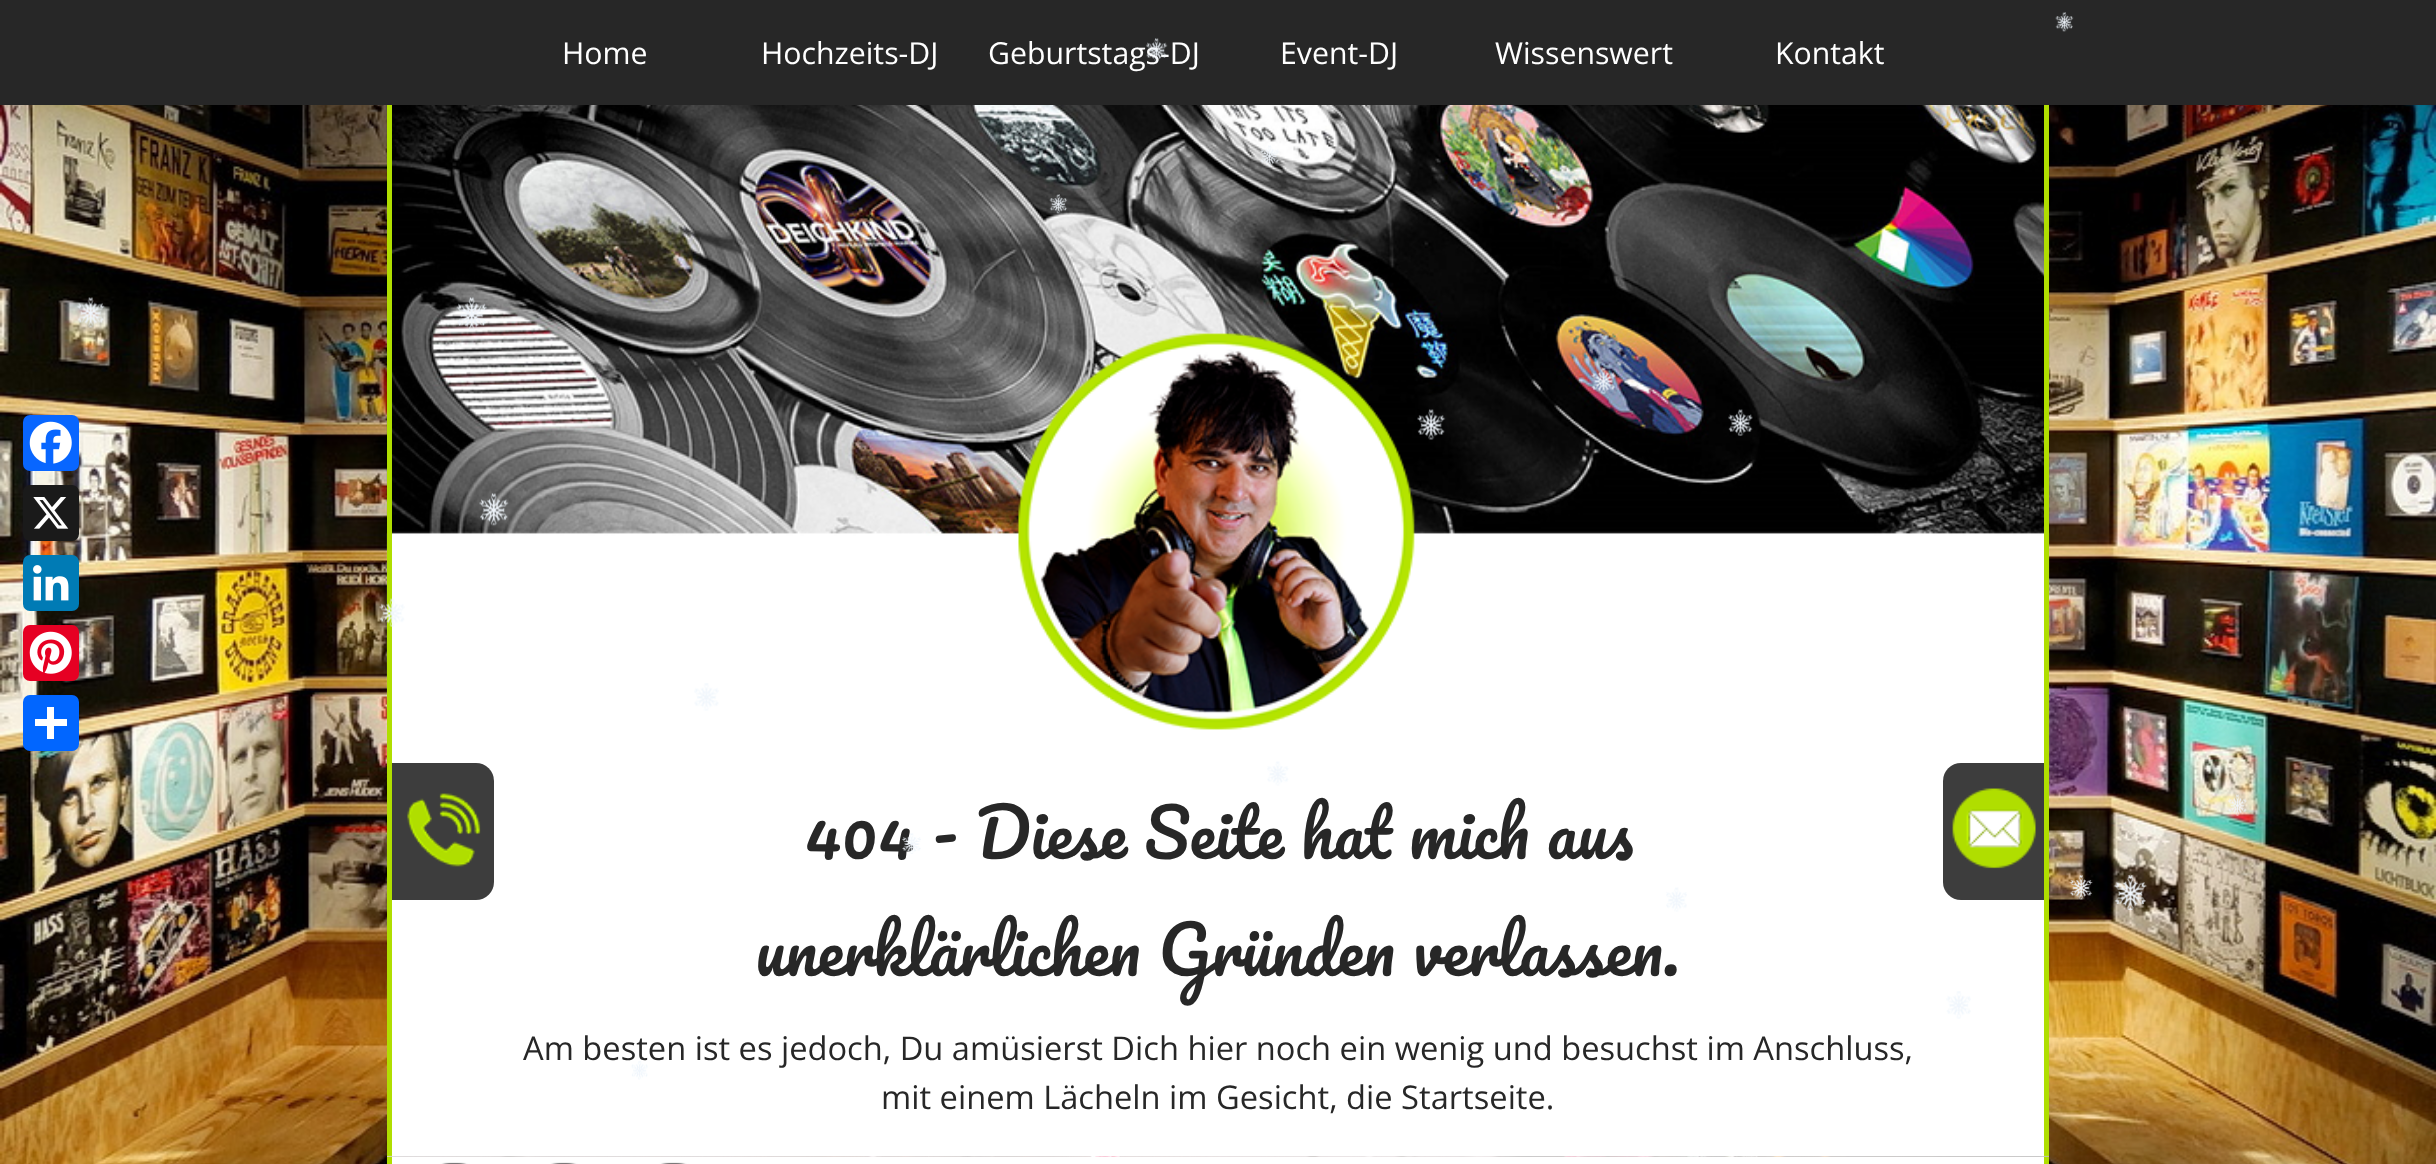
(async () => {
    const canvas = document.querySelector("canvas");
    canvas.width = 2436;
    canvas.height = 1164;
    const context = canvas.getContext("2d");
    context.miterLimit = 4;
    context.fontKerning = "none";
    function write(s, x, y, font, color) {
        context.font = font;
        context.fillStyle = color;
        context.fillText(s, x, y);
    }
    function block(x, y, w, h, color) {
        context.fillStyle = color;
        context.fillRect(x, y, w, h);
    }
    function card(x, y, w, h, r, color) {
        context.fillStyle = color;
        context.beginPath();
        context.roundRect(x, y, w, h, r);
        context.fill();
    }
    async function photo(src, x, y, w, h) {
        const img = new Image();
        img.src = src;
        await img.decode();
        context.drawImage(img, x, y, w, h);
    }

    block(0, 0, 2436, 1164, "rgb(255, 255, 255)");
    block(0, 0, 2436, 105, "rgb(39, 39, 39)");
    await photo("media/1.png", 2055, 12, 19, 20);
    write("Geburtstags-DJ", 988, 64, "30.25px Open Sans", "rgb(255, 255, 255)");
    await photo("media/2.png", 1146, 38, 22, 24);
    await photo("media/25.png", 0, 105, 2436, 1059);
    await photo("media/26.png", 386, 105, 1664, 661);
    await photo("media/3.png", 1260, 145, 20, 22);
    await photo("media/4.png", 1049, 194, 19, 20);
    await photo("media/5.png", 76, 297, 29, 31);
    await photo("media/6.png", 456, 297, 32, 34);
    await photo("media/7.png", 1591, 367, 25, 27);
    await photo("media/8.png", 1417, 409, 29, 31);
    await photo("media/9.png", 1728, 409, 25, 28);
    await photo("media/10.png", 479, 493, 30, 33);
    block(387, 105, 5, 658, "rgb(176, 222, 0)");
    await photo("media/11.png", 379, 598, 26, 29);
    await photo("media/12.png", 694, 683, 25, 28);
    block(392, 766, 1652, 391, "rgb(255, 255, 255)");
    await photo("media/13.png", 1267, 761, 22, 25);
    await photo("media/14.png", 2228, 794, 19, 22);
    write("404 - Diese Seite hat mich aus", 804, 859, "65.3px Pacifico", "rgb(39, 39, 39)");
    await photo("media/15.png", 902, 833, 19, 21);
    await photo("media/16.png", 1666, 887, 21, 25);
    await photo("media/17.png", 2069, 875, 24, 25);
    await photo("media/18.png", 2113, 875, 34, 35);
    await photo("media/19.png", 1946, 991, 25, 28);
    write("Am besten ist es jedoch, Du amüsierst Dich hier noch ein wenig und besuchst im Anschluss,", 523, 1060, "32.65px Open Sans", "rgb(39, 39, 39)");
    await photo("media/20.png", 631, 1061, 17, 19);
    card(23, 415, 56, 56, 7, "rgb(8, 102, 255)");
    await photo("media/21.png", 29, 421, 43, 43);
    card(23, 485, 56, 56, 7, "rgb(26, 26, 26)");
    await photo("media/22.png", 33, 497, 36, 32);
    card(23, 555, 56, 56, 7, "rgb(0, 123, 181)");
    await photo("media/23.png", 33, 565, 36, 36);
    card(23, 625, 56, 56, 7, "rgb(230, 0, 35)");
    await photo("media/24.png", 29, 631, 43, 43);
    card(23, 695, 56, 56, 7, "rgb(1, 102, 255)");
    block(47, 707, 7, 32, "rgb(255, 255, 255)");
    block(35, 719, 32, 7, "rgb(255, 255, 255)");
    write("Home", 562, 64, "30.25px Open Sans", "rgb(255, 255, 255)");
    write("Hochzeits-DJ", 761, 64, "30.25px Open Sans", "rgb(255, 255, 255)");
    write("Event-DJ", 1280, 64, "30.25px Open Sans", "rgb(255, 255, 255)");
    write("Wissenswert", 1495, 64, "30.25px Open Sans", "rgb(255, 255, 255)");
    write("Kontakt", 1775, 64, "30.25px Open Sans", "rgb(255, 255, 255)");
    block(2044, 105, 5, 658, "rgb(176, 222, 0)");
    await photo("media/27.png", 1018, 333, 397, 397);
    context.fillStyle = "rgb(61, 61, 61)";
    context.beginPath();
    context.roundRect(387, 763, 107, 137, [0, 18, 18, 0]);
    context.fill();
    block(387, 763, 5, 394, "rgb(176, 222, 0)");
    await photo("media/28.png", 407, 793, 74, 74);
    context.fillStyle = "rgb(61, 61, 61)";
    context.beginPath();
    context.roundRect(1943, 763, 106, 137, [18, 0, 0, 18]);
    context.fill();
    await photo("media/29.png", 1952, 788, 84, 81);
    block(2044, 763, 5, 394, "rgb(176, 222, 0)");
    context.wordSpacing = "1px";
    write("unerklärlichen Gründen verlassen.", 755, 976, "65.3px Pacifico", "rgb(39, 39, 39)");
    context.wordSpacing = "0px";
    write("mit einem Lächeln im Gesicht, die Startseite.", 881, 1109, "32.65px Open Sans", "rgb(39, 39, 39)");
    await photo("media/31.png", 386, 1156, 1664, 8);
    await photo("media/30.png", 387, 1155, 1662, 9);
    block(2044, 1157, 5, 7, "rgb(176, 222, 0)");
    block(387, 1157, 5, 7, "rgb(176, 222, 0)");
})();
